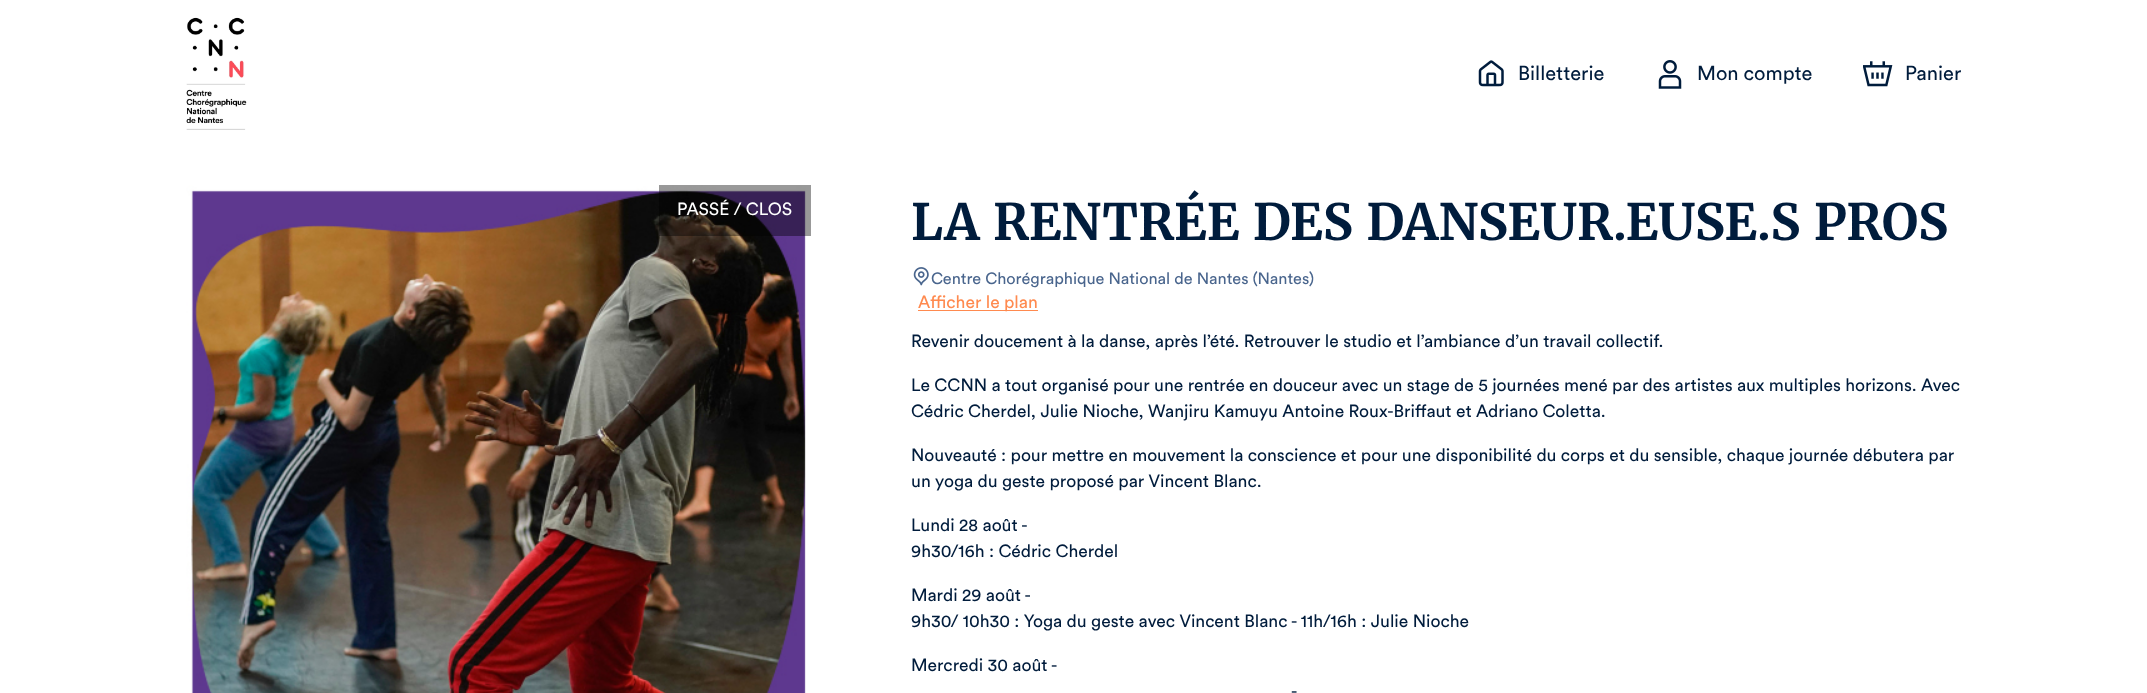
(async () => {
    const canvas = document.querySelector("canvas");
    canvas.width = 2147;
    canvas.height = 693;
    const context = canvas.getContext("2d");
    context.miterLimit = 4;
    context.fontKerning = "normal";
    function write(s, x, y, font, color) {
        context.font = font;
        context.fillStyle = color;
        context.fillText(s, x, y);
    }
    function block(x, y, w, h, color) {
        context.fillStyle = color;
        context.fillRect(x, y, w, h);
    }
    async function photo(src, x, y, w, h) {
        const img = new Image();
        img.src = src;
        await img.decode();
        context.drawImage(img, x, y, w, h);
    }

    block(0, 0, 2147, 693, "rgb(255, 255, 255)");
    context.save();
    context.beginPath();
    context.rect(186, 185, 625, 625);
    context.clip();
    context.beginPath();
    context.moveTo(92, 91);
    context.lineTo(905, 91);
    context.lineTo(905, 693);
    context.lineTo(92, 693);
    context.closePath();
    context.moveTo(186, 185);
    context.lineTo(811, 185);
    context.lineTo(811, 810);
    context.lineTo(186, 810);
    context.closePath();
    context.clip("evenodd");
    context.fillStyle = "rgba(0, 0, 0, 0.8)";
    context.filter = "blur(31px)";
    context.beginPath();
    context.rect(186, 185, 625, 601);
    context.fill();
    context.filter = "none";
    context.restore();
    await photo("media/1.png", 186, 17, 61, 113);
    await photo("media/2.png", 1478, 60, 26, 27);
    write("Billetterie", 1518, 80, "20px Circular", "rgb(0, 28, 60)");
    await photo("media/3.png", 1658, 60, 24, 29);
    write("Mon compte", 1697, 80, "20px Circular", "rgb(0, 28, 60)");
    await photo("media/4.png", 1863, 61, 30, 26);
    write("Panier", 1905, 80, "20px Circular", "rgb(0, 28, 60)");
    await photo("media/5.png", 186, 185, 620, 508);
    block(659, 185, 152, 51, "rgba(0, 0, 0, 0.4)");
    write("PASSÉ / CLOS", 677, 215, "17.5px Circular", "rgb(255, 255, 255)");
    context.wordSpacing = "1.5px";
    write("LA RENTRÉE DES DANSEUR.EUSE.S PROS", 911, 240, "bold 50px Merriweather", "rgb(0, 28, 60)");
    await photo("media/6.png", 913, 267, 16, 19);
    context.wordSpacing = "0px";
    write("Centre Chorégraphique National de Nantes (Nantes)", 931, 284, "16.25px Circular", "rgb(73, 101, 141)");
    block(918, 310, 120, 1, "rgb(255, 138, 79)");
    write("Afficher le plan", 918, 308, "17.5px Circular", "rgb(255, 138, 79)");
    write("Revenir doucement à la danse, après l’été. Retrouver le studio et l’ambiance d’un travail collectif.", 911, 347, "17.5px Circular", "rgb(0, 28, 60)");
    write("Le CCNN a tout organisé pour une rentrée en douceur avec un stage de 5 journées mené par des artistes aux multiples horizons. Avec", 911, 391, "17.5px Circular", "rgb(0, 28, 60)");
    write("Cédric Cherdel, Julie Nioche, Wanjiru Kamuyu Antoine Roux-Briffaut et Adriano Coletta.", 911, 417, "17.5px Circular", "rgb(0, 28, 60)");
    write("Nouveauté : pour mettre en mouvement la conscience et pour une disponibilité du corps et du sensible, chaque journée débutera par", 911, 461, "17.5px Circular", "rgb(0, 28, 60)");
    write("un yoga du geste proposé par Vincent Blanc.", 911, 487, "17.5px Circular", "rgb(0, 28, 60)");
    write("Lundi 28 août -", 911, 531, "17.5px Circular", "rgb(0, 28, 60)");
    write("9h30/16h : Cédric Cherdel", 911, 557, "17.5px Circular", "rgb(0, 28, 60)");
    write("Mardi 29 août -", 911, 601, "17.5px Circular", "rgb(0, 28, 60)");
    write("9h30/ 10h30 : Yoga du geste avec Vincent Blanc - 11h/16h : Julie Nioche", 911, 627, "17.5px Circular", "rgb(0, 28, 60)");
    write("Mercredi 30 août -", 911, 671, "17.5px Circular", "rgb(0, 28, 60)");
    write("-", 1291, 697, "17.5px Circular", "rgb(0, 28, 60)");
})();
